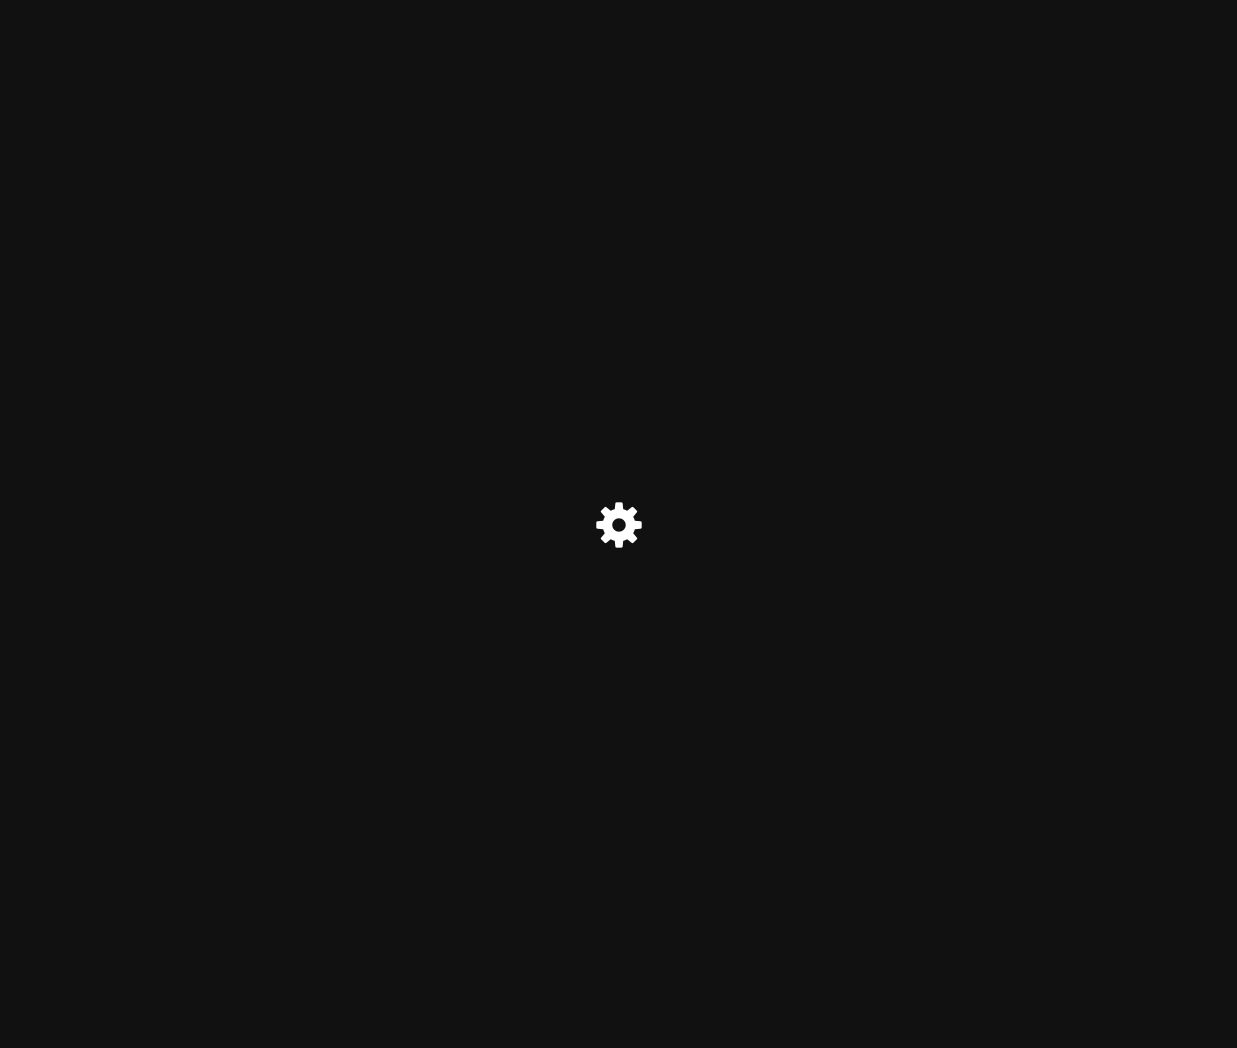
(async () => {
    const canvas = document.querySelector("canvas");
    canvas.width = 1237;
    canvas.height = 1048;
    const context = canvas.getContext("2d");
    context.miterLimit = 4;
    context.fontKerning = "normal";
    function block(x, y, w, h, color) {
        context.fillStyle = color;
        context.fillRect(x, y, w, h);
    }
    async function photo(src, x, y, w, h) {
        const img = new Image();
        img.src = src;
        await img.decode();
        context.drawImage(img, x, y, w, h);
    }

    block(0, 0, 1237, 1048, "rgb(17, 17, 17)");
    await photo("media/1.png", 596, 502, 46, 46);
})();
